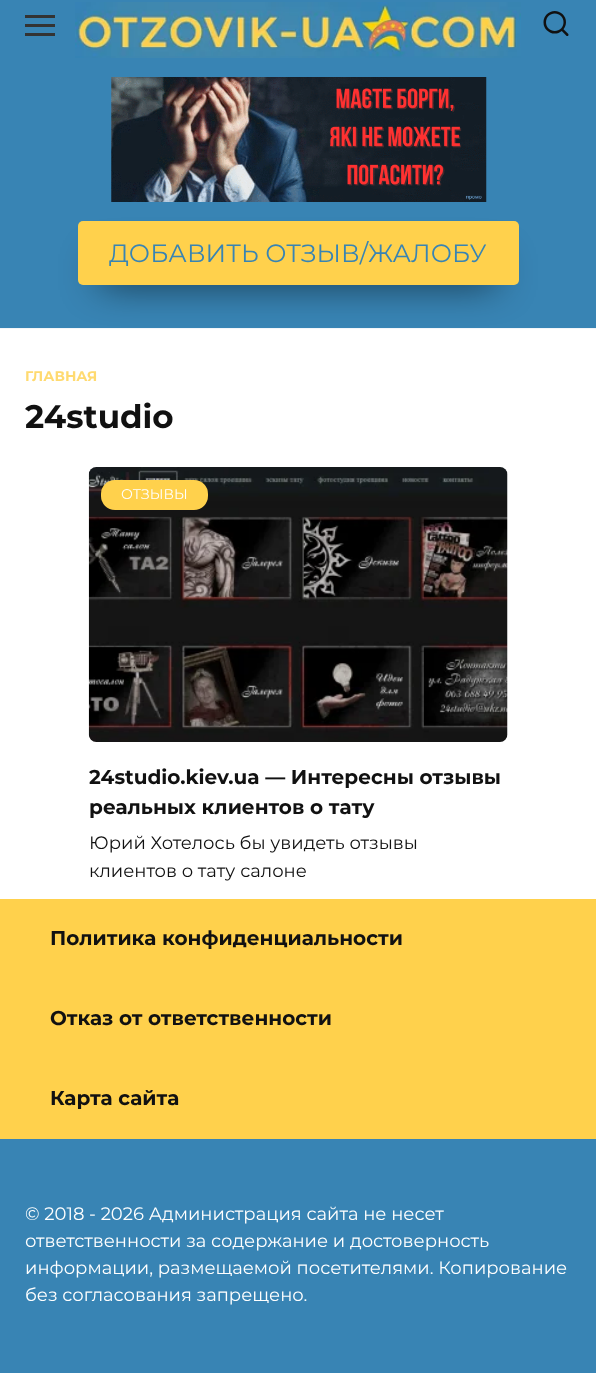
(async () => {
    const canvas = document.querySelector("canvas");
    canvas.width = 596;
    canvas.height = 1388;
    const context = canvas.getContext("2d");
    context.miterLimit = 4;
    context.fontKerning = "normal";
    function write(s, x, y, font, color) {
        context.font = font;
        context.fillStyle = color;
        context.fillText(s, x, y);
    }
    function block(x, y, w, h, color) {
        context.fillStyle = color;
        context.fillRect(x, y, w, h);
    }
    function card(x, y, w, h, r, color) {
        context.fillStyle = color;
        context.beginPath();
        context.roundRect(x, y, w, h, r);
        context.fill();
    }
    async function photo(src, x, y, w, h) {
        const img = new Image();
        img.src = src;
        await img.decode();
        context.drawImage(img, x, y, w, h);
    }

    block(0, 0, 596, 1388, "rgb(255, 255, 255)");
    block(0, 0, 596, 328, "rgb(56, 132, 180)");
    block(0, 328, 596, 1, "rgb(242, 245, 249)");
    block(25, 15, 30, 3, "rgb(51, 51, 51)");
    block(25, 24, 30, 3, "rgb(51, 51, 51)");
    block(25, 33, 30, 3, "rgb(51, 51, 51)");
    await photo("media/1.png", 75, 2, 446, 56);
    write("🔍", 541, 36, "30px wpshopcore", "rgb(17, 17, 17)");
    await photo("media/2.png", 111, 77, 376, 125);
    context.fillStyle = "rgba(0, 0, 0, 0.9)";
    context.filter = "blur(19px)";
    context.beginPath();
    context.rect(100, 263, 396, 18);
    context.fill();
    context.filter = "none";
    card(78, 221, 441, 64, 5, "rgb(255, 209, 76)");
    write("ДОБАВИТЬ ОТЗЫВ/ЖАЛОБУ", 109, 262, "25px Montserrat", "rgb(56, 132, 180)");
    write("ГЛАВНАЯ", 25, 381, "bold 14px Montserrat", "rgb(255, 218, 112)");
    write("24studio", 25, 428, "bold 32.5px Montserrat", "rgb(17, 17, 17)");
    await photo("media/3.png", 88, 467, 420, 275);
    card(101, 480, 107, 30, 14, "rgb(255, 209, 76)");
    write("ОТЗЫВЫ", 121, 499, "14px Montserrat", "rgb(255, 255, 255)");
    write("24studio.kiev.ua — Интересны отзывы", 89, 784, "bold 20px Montserrat", "rgb(17, 17, 17)");
    write("реальных клиентов о тату", 89, 814, "bold 20px Montserrat", "rgb(17, 17, 17)");
    write("Юрий Хотелось бы увидеть отзывы", 89, 849, "18px Montserrat", "rgb(17, 17, 17)");
    write("клиентов о тату салоне", 89, 877, "18px Montserrat", "rgb(17, 17, 17)");
    block(0, 899, 596, 240, "rgb(255, 209, 76)");
    write("Политика конфиденциальности", 50, 945, "bold 20px Montserrat", "rgb(17, 17, 17)");
    write("Отказ от ответственности", 50, 1025, "bold 20px Montserrat", "rgb(17, 17, 17)");
    write("Карта сайта", 50, 1105, "bold 20px Montserrat", "rgb(17, 17, 17)");
    block(0, 1139, 596, 234, "rgb(56, 132, 180)");
    write("© 2018 - 2026 Администрация сайта не несет", 25, 1220, "18px Montserrat", "rgb(255, 255, 255)");
    write("ответственности за содержание и достоверность", 25, 1247, "18px Montserrat", "rgb(255, 255, 255)");
    write("информации, размещаемой посетителями. Копирование", 25, 1274, "18px Montserrat", "rgb(255, 255, 255)");
    write("без согласования запрещено.", 25, 1301, "18px Montserrat", "rgb(255, 255, 255)");
})();
